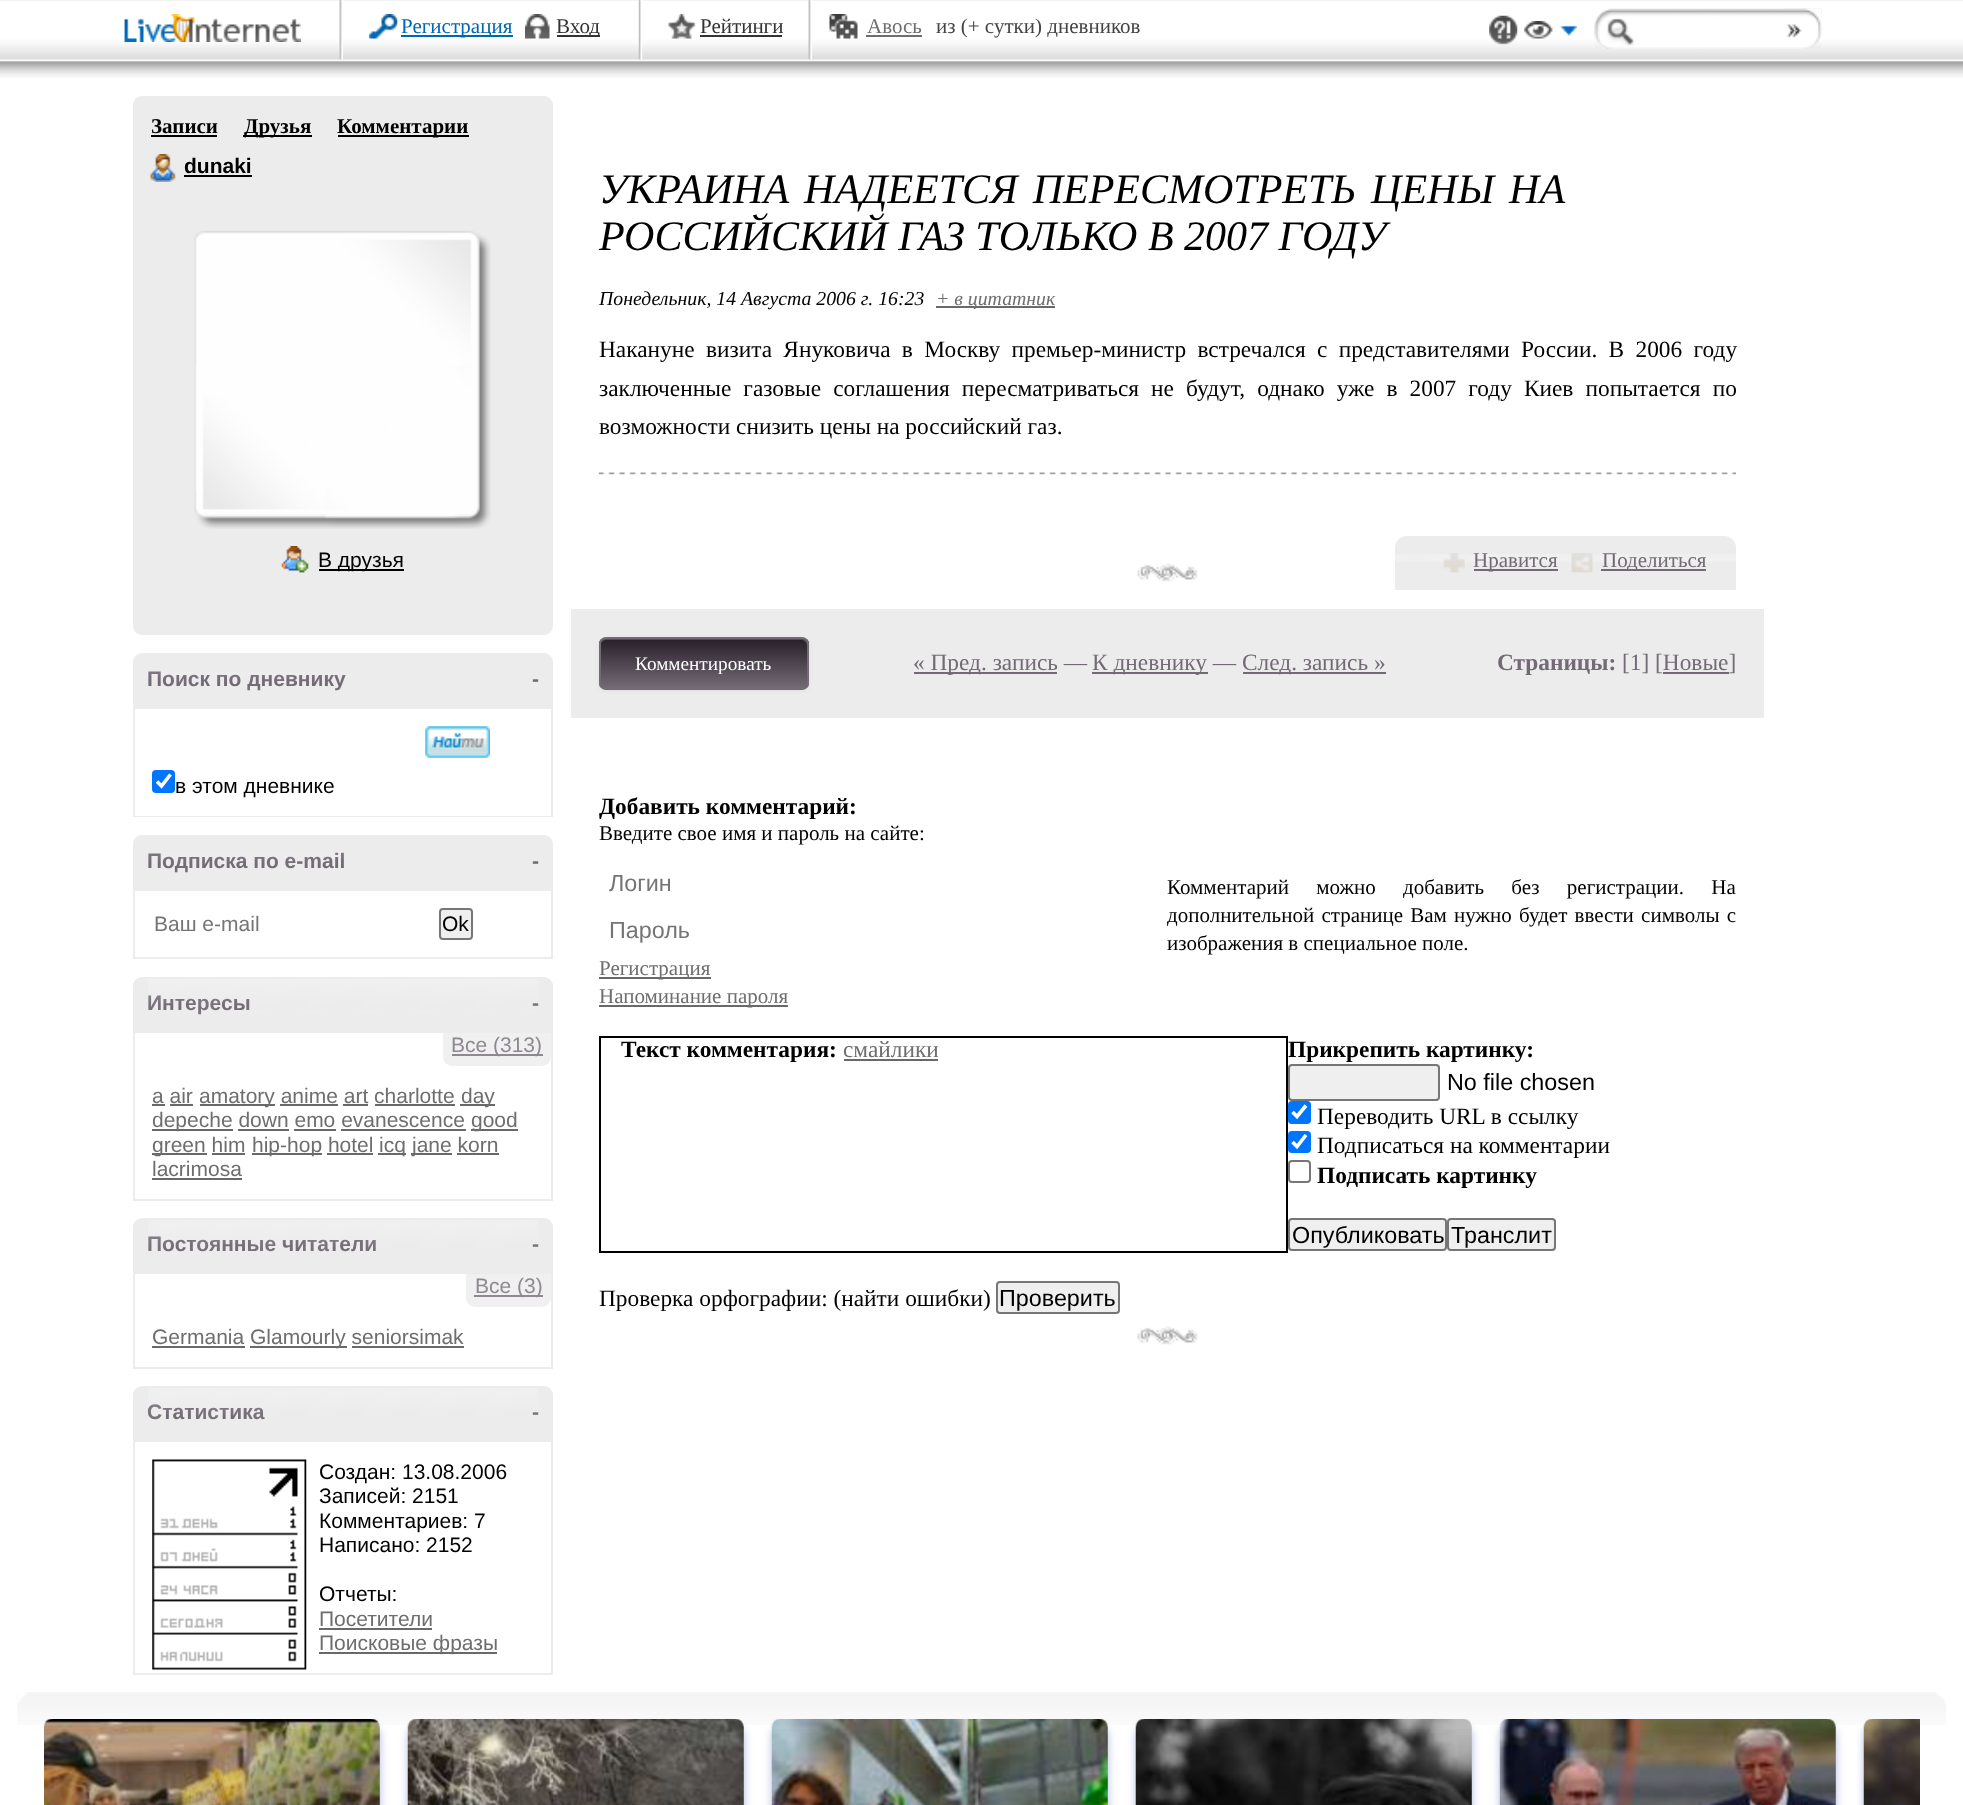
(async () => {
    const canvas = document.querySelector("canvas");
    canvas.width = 1963;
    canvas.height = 1805;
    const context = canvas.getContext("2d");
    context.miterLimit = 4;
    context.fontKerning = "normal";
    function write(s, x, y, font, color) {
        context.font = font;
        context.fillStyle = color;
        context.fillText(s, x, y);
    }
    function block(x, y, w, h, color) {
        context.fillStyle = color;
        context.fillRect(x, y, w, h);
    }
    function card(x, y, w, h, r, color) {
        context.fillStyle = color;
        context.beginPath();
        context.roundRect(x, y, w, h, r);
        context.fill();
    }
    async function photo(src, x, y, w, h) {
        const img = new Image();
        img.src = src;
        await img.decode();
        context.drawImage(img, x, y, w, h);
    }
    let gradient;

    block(0, 0, 1963, 1805, "rgb(255, 255, 255)");
    await photo("media/1.png", 0, 0, 1963, 78);
    await photo("media/2.png", 124, 14, 177, 28);
    await photo("media/3.png", 339, 0, 4, 60);
    await photo("media/4.png", 369, 14, 29, 25);
    block(401, 35, 112, 2, "rgb(0, 103, 180)");
    write("Регистрация", 401, 33, "21px Liberation Serif", "rgb(0, 103, 180)");
    await photo("media/5.png", 525, 14, 25, 25);
    block(557, 35, 43, 2, "rgb(51, 51, 51)");
    write("Вход", 556, 33, "21px Liberation Serif", "rgb(51, 51, 51)");
    await photo("media/6.png", 638, 0, 5, 60);
    await photo("media/7.png", 668, 14, 28, 25);
    write("Рейтинги", 700, 33, "21px Liberation Serif", "rgb(51, 51, 51)");
    block(700, 35, 82, 2, "rgb(51, 51, 51)");
    await photo("media/3.png", 808, 0, 4, 60);
    await photo("media/8.png", 829, 14, 29, 25);
    write("Авось", 867, 33, "21px Liberation Serif", "rgb(110, 110, 110)");
    block(866, 35, 56, 2, "rgb(110, 110, 110)");
    write("из (+ сутки) дневников", 936, 33, "21px Liberation Serif", "rgb(68, 68, 68)");
    await photo("media/9.png", 1489, 15, 29, 30);
    await photo("media/10.png", 1524, 21, 53, 18);
    await photo("media/11.png", 1594, 8, 228, 41);
    await photo("media/12.png", 1783, 8, 39, 41);
    card(133, 96, 420, 539, 9, "rgb(236, 236, 236)");
    write("Записи", 151, 133, "bold 21px Liberation Serif", "rgb(0, 0, 0)");
    block(151, 135, 66, 2, "rgb(0, 0, 0)");
    block(243, 135, 69, 2, "rgb(0, 0, 0)");
    write("Друзья", 244, 133, "bold 21px Liberation Serif", "rgb(0, 0, 0)");
    block(338, 135, 131, 2, "rgb(0, 0, 0)");
    write("Комментарии", 337, 133, "bold 21px Liberation Serif", "rgb(0, 0, 0)");
    await photo("media/13.png", 150, 154, 26, 28);
    write("dunaki", 184, 173, "bold 21px Liberation Sans", "rgb(0, 0, 0)");
    block(184, 175, 68, 2, "rgb(0, 0, 0)");
    await photo("media/14.png", 194, 231, 297, 298);
    await photo("media/15.png", 281, 546, 28, 27);
    block(319, 569, 85, 2, "rgb(0, 0, 0)");
    write("В друзья", 318, 567, "21px Liberation Sans", "rgb(0, 0, 0)");
    context.fillStyle = "rgb(236, 236, 236)";
    context.beginPath();
    context.roundRect(134, 654, 418, 54, [8, 8, 0, 0]);
    context.fill();
    context.strokeStyle = "rgb(236, 236, 236)";
    context.lineWidth = 2;
    context.stroke();
    write("Поиск по дневнику", 147, 686, "bold 21px Liberation Sans", "rgb(115, 106, 117)");
    write("-", 532, 686, "bold 21px Liberation Sans", "rgb(115, 106, 117)");
    await photo("media/16.png", 148, 671, 197, 19);
    block(551, 709, 2, 108, "rgb(236, 236, 236)");
    block(133, 816, 420, 1, "rgb(236, 236, 236)");
    block(133, 709, 2, 108, "rgb(236, 236, 236)");
    await photo("media/17.png", 425, 726, 65, 32);
    card(152, 770, 23, 23, 4, "rgb(0, 117, 255)");
    context.beginPath();
    context.moveTo(157, 781.5);
    context.lineTo(161.5, 786);
    context.lineTo(170.5, 774.5);
    context.strokeStyle = "rgb(255, 255, 255)";
    context.lineWidth = 3.6;
    context.stroke();
    write("в этом дневнике", 175, 793, "21px Liberation Sans", "rgb(0, 0, 0)");
    context.fillStyle = "rgb(236, 236, 236)";
    context.beginPath();
    context.roundRect(134, 836, 418, 54, [8, 8, 0, 0]);
    context.fill();
    context.strokeStyle = "rgb(236, 236, 236)";
    context.lineWidth = 2;
    context.stroke();
    write("Подписка по e-mail", 147, 868, "bold 21px Liberation Sans", "rgb(115, 106, 117)");
    write("-", 532, 868, "bold 21px Liberation Sans", "rgb(115, 106, 117)");
    await photo("media/18.png", 148, 852, 196, 20);
    block(551, 891, 2, 68, "rgb(236, 236, 236)");
    block(133, 957, 420, 2, "rgb(236, 236, 236)");
    block(133, 891, 2, 68, "rgb(236, 236, 236)");
    write("Ваш e-mail", 154, 931, "21px Liberation Sans", "rgb(117, 117, 117)");
    context.fillStyle = "rgb(239, 239, 239)";
    context.beginPath();
    context.roundRect(440, 909, 32, 30, 3);
    context.fill();
    context.strokeStyle = "rgb(118, 118, 118)";
    context.stroke();
    write("Ok", 442, 931, "21px Liberation Sans", "rgb(0, 0, 0)");
    context.fillStyle = "rgb(236, 236, 236)";
    context.beginPath();
    context.roundRect(134, 978, 418, 54, [8, 8, 0, 0]);
    context.fill();
    context.strokeStyle = "rgb(236, 236, 236)";
    context.stroke();
    write("Интересы", 147, 1010, "bold 21px Liberation Sans", "rgb(115, 106, 117)");
    write("-", 532, 1010, "bold 21px Liberation Sans", "rgb(115, 106, 117)");
    await photo("media/19.png", 148, 979, 390, 36);
    block(551, 1033, 2, 168, "rgb(236, 236, 236)");
    block(133, 1199, 420, 2, "rgb(236, 236, 236)");
    block(133, 1033, 2, 168, "rgb(236, 236, 236)");
    context.fillStyle = "rgb(240, 240, 240)";
    context.beginPath();
    context.roundRect(443, 1033, 108, 33, [0, 0, 9, 9]);
    context.fill();
    block(452, 1054, 91, 2, "rgb(143, 136, 145)");
    write("Все (313)", 451, 1052, "21px Liberation Sans", "rgb(143, 136, 145)");
    write("a air", 152, 1103, "21px Liberation Sans", "rgb(110, 110, 110)");
    block(152, 1104, 13, 2, "rgb(105, 105, 105)");
    block(200, 1104, 75, 2, "rgb(105, 105, 105)");
    write("amatory anime art charlotte", 199, 1103, "21px Liberation Sans", "rgb(110, 110, 110)");
    block(460, 1104, 35, 2, "rgb(105, 105, 105)");
    write("day", 461, 1103, "21px Liberation Sans", "rgb(110, 110, 110)");
    block(170, 1104, 23, 2, "rgb(105, 105, 105)");
    block(280, 1104, 58, 2, "rgb(105, 105, 105)");
    block(343, 1104, 25, 2, "rgb(105, 105, 105)");
    block(375, 1104, 80, 2, "rgb(105, 105, 105)");
    block(152, 1129, 81, 2, "rgb(105, 105, 105)");
    write("depeche down emo evanescence", 152, 1127, "21px Liberation Sans", "rgb(110, 110, 110)");
    block(471, 1129, 47, 2, "rgb(105, 105, 105)");
    write("good", 471, 1127, "21px Liberation Sans", "rgb(110, 110, 110)");
    block(238, 1129, 51, 2, "rgb(105, 105, 105)");
    block(294, 1129, 42, 2, "rgb(105, 105, 105)");
    block(341, 1129, 125, 2, "rgb(105, 105, 105)");
    block(152, 1153, 55, 2, "rgb(105, 105, 105)");
    write("green him", 152, 1152, "21px Liberation Sans", "rgb(110, 110, 110)");
    block(252, 1153, 70, 2, "rgb(105, 105, 105)");
    write("hip-hop hotel", 252, 1152, "21px Liberation Sans", "rgb(110, 110, 110)");
    block(378, 1153, 28, 2, "rgb(105, 105, 105)");
    write("icq", 379, 1152, "21px Liberation Sans", "rgb(110, 110, 110)");
    block(411, 1153, 41, 2, "rgb(105, 105, 105)");
    write("jane korn", 412, 1152, "21px Liberation Sans", "rgb(110, 110, 110)");
    block(212, 1153, 33, 2, "rgb(105, 105, 105)");
    block(327, 1153, 46, 2, "rgb(105, 105, 105)");
    block(457, 1153, 42, 2, "rgb(105, 105, 105)");
    write("lacrimosa", 152, 1176, "21px Liberation Sans", "rgb(110, 110, 110)");
    block(152, 1178, 90, 2, "rgb(105, 105, 105)");
    context.fillStyle = "rgb(236, 236, 236)";
    context.beginPath();
    context.roundRect(134, 1219, 418, 54, [8, 8, 0, 0]);
    context.fill();
    context.stroke();
    write("Постоянные читатели", 147, 1251, "bold 21px Liberation Sans", "rgb(115, 106, 117)");
    write("-", 532, 1251, "bold 21px Liberation Sans", "rgb(115, 106, 117)");
    await photo("media/20.png", 148, 1220, 390, 31);
    block(551, 1274, 2, 95, "rgb(236, 236, 236)");
    block(133, 1367, 420, 2, "rgb(236, 236, 236)");
    block(133, 1274, 2, 95, "rgb(236, 236, 236)");
    context.fillStyle = "rgb(240, 240, 240)";
    context.beginPath();
    context.roundRect(466, 1274, 85, 33, [0, 0, 9, 9]);
    context.fill();
    block(474, 1295, 69, 2, "rgb(143, 136, 145)");
    write("Все (3)", 475, 1293, "21px Liberation Sans", "rgb(143, 136, 145)");
    write("Germania", 152, 1344, "21px Liberation Sans", "rgb(110, 110, 110)");
    block(152, 1346, 93, 2, "rgb(105, 105, 105)");
    block(250, 1346, 97, 2, "rgb(105, 105, 105)");
    write("Glamourly seniorsimak", 250, 1344, "21px Liberation Sans", "rgb(110, 110, 110)");
    block(352, 1346, 112, 2, "rgb(105, 105, 105)");
    context.fillStyle = "rgb(236, 236, 236)";
    context.beginPath();
    context.roundRect(134, 1387, 418, 54, [8, 8, 0, 0]);
    context.fill();
    context.stroke();
    write("Статистика", 147, 1419, "bold 21px Liberation Sans", "rgb(115, 106, 117)");
    write("-", 532, 1419, "bold 21px Liberation Sans", "rgb(115, 106, 117)");
    await photo("media/21.png", 148, 1388, 390, 31);
    block(551, 1442, 2, 233, "rgb(236, 236, 236)");
    block(133, 1673, 420, 2, "rgb(236, 236, 236)");
    block(133, 1442, 2, 233, "rgb(236, 236, 236)");
    await photo("media/22.png", 152, 1459, 155, 211);
    write("Создан: 13.08.2006", 319, 1479, "21px Liberation Sans", "rgb(0, 0, 0)");
    write("Записей: 2151", 319, 1503, "21px Liberation Sans", "rgb(0, 0, 0)");
    write("Комментариев: 7", 319, 1528, "21px Liberation Sans", "rgb(0, 0, 0)");
    write("Написано: 2152", 319, 1552, "21px Liberation Sans", "rgb(0, 0, 0)");
    write("Отчеты:", 319, 1601, "21px Liberation Sans", "rgb(0, 0, 0)");
    write("Посетители", 319, 1626, "21px Liberation Sans", "rgb(110, 110, 110)");
    block(319, 1628, 113, 2, "rgb(105, 105, 105)");
    block(319, 1652, 178, 2, "rgb(105, 105, 105)");
    write("Поисковые фразы", 319, 1650, "21px Liberation Sans", "rgb(110, 110, 110)");
    await photo("media/23.png", 1137, 563, 61, 19);
    context.wordSpacing = "4.5px";
    write("УКРАИНА НАДЕЕТСЯ ПЕРЕСМОТРЕТЬ ЦЕНЫ НА", 599, 203, "italic 42px Liberation Serif", "rgb(0, 0, 0)");
    context.wordSpacing = "0px";
    write("РОССИЙСКИЙ ГАЗ ТОЛЬКО В 2007 ГОДУ", 599, 250, "italic 42px Liberation Serif", "rgb(0, 0, 0)");
    write("Понедельник, 14 Августа 2006 г. 16:23", 599, 305, "italic 19.8px Liberation Serif", "rgb(0, 0, 0)");
    block(936, 306, 119, 2, "rgb(105, 105, 105)");
    write("+ в цитатник", 936, 305, "italic 19.8px Liberation Serif", "rgb(110, 110, 110)");
    await photo("media/24.png", 598, 472, 1138, 3);
    context.wordSpacing = "5.5px";
    write("Накануне визита Януковича в Москву премьер-министр встречался с представителями России. В 2006 году", 599, 357, "23.35px Liberation Serif", "rgb(0, 0, 0)");
    context.wordSpacing = "6.25px";
    write("заключенные газовые соглашения пересматриваться не будут, однако уже в 2007 году Киев попытается по", 599, 396, "23.35px Liberation Serif", "rgb(0, 0, 0)");
    context.wordSpacing = "0px";
    write("возможности снизить цены на российский газ.", 599, 434, "23.35px Liberation Serif", "rgb(0, 0, 0)");
    context.fillStyle = "rgb(236, 236, 236)";
    context.beginPath();
    context.roundRect(1395, 536, 341, 54, [12, 12, 0, 0]);
    context.fill();
    await photo("media/25.png", 1395, 554, 341, 8);
    await photo("media/26.png", 1443, 553, 22, 20);
    block(1474, 569, 84, 2, "rgb(115, 106, 117)");
    write("Нравится", 1473, 567, "21px Liberation Serif", "rgb(115, 106, 117)");
    await photo("media/27.png", 1571, 553, 22, 20);
    block(1601, 569, 105, 2, "rgb(115, 106, 117)");
    write("Поделиться", 1602, 567, "21px Liberation Serif", "rgb(115, 106, 117)");
    block(571, 609, 1193, 109, "rgb(236, 236, 236)");
    context.fillStyle = "rgba(0, 0, 0, 0.05)";
    context.filter = "blur(2px)";
    context.beginPath();
    context.roundRect(599, 639, 210, 52, 7);
    context.fill();
    context.filter = "none";
    context.save();
    context.beginPath();
    context.roundRect(599, 637, 210, 53, 7);
    context.clip();
    gradient = context.createLinearGradient(704, 639, 704, 688);
    gradient.addColorStop(0, "rgb(40, 31, 42)");
    gradient.addColorStop(1, "rgb(115, 106, 117)");
    context.fillStyle = gradient;
    context.fillRect(599, 639, 210, 49);
    context.restore();
    context.fillStyle = "rgba(255, 255, 255, 0.2)";
    context.beginPath();
    context.moveTo(606, 640);
    context.lineTo(802, 640);
    context.bezierCurveTo(804, 640, 807, 643, 807, 646);
    context.lineTo(807, 644);
    context.bezierCurveTo(807, 641, 805, 639, 802, 639);
    context.lineTo(605, 639);
    context.bezierCurveTo(602, 639, 600, 641, 600, 644);
    context.lineTo(600, 646);
    context.bezierCurveTo(600, 643, 603, 640, 606, 640);
    context.closePath();
    context.fill();
    context.beginPath();
    context.roundRect(600, 638, 208, 51, 6);
    context.strokeStyle = "rgb(115, 106, 117)";
    context.stroke();
    write("Комментировать", 635, 670, "19.25px Liberation Serif", "rgb(255, 255, 255)");
    block(914, 672, 143, 2, "rgb(115, 106, 117)");
    write("« Пред. запись —", 913, 670, "23.35px Liberation Serif", "rgb(115, 106, 117)");
    block(1092, 672, 116, 2, "rgb(115, 106, 117)");
    write("К дневнику —", 1092, 670, "23.35px Liberation Serif", "rgb(115, 106, 117)");
    block(1243, 672, 143, 2, "rgb(115, 106, 117)");
    write("След. запись »", 1242, 670, "23.35px Liberation Serif", "rgb(115, 106, 117)");
    write("Страницы:", 1497, 670, "bold 23.35px Liberation Serif", "rgb(115, 106, 117)");
    write("[1] [Новые]", 1622, 670, "23.35px Liberation Serif", "rgb(115, 106, 117)");
    block(1663, 672, 66, 2, "rgb(115, 106, 117)");
    await photo("media/23.png", 1137, 1326, 61, 19);
    write("Добавить комментарий:", 599, 814, "bold 23.35px Liberation Serif", "rgb(0, 0, 0)");
    write("Введите свое имя и пароль на сайте:", 599, 840, "21px Liberation Serif", "rgb(0, 0, 0)");
    write("Логин", 609, 891, "23.35px Liberation Sans", "rgb(117, 117, 117)");
    write("Пароль", 609, 938, "23.35px Liberation Sans", "rgb(117, 117, 117)");
    block(599, 977, 112, 2, "rgb(105, 105, 105)");
    write("Регистрация", 599, 975, "21px Liberation Serif", "rgb(110, 110, 110)");
    block(599, 1005, 189, 2, "rgb(105, 105, 105)");
    write("Напоминание пароля", 599, 1003, "21px Liberation Serif", "rgb(110, 110, 110)");
    context.wordSpacing = "22px";
    write("Комментарий можно добавить без регистрации. На", 1167, 894, "21px Liberation Serif", "rgb(0, 0, 0)");
    context.wordSpacing = "2px";
    write("дополнительной странице Вам нужно будет ввести символы с", 1167, 922, "21px Liberation Serif", "rgb(0, 0, 0)");
    context.wordSpacing = "0px";
    write("изображения в специальное поле.", 1167, 950, "21px Liberation Serif", "rgb(0, 0, 0)");
    context.strokeStyle = "rgb(0, 0, 0)";
    context.strokeRect(600, 1037, 687, 215);
    write("Текст комментария:", 621, 1057, "bold 23.35px Liberation Serif", "rgb(0, 0, 0)");
    write("смайлики", 843, 1057, "23.35px Liberation Serif", "rgb(110, 110, 110)");
    block(844, 1059, 94, 2, "rgb(105, 105, 105)");
    write("Проверка орфографии: (найти ошибки)", 599, 1306, "23.35px Liberation Serif", "rgb(0, 0, 0)");
    context.fillStyle = "rgb(239, 239, 239)";
    context.beginPath();
    context.roundRect(997, 1282, 122, 31, 3);
    context.fill();
    context.strokeStyle = "rgb(118, 118, 118)";
    context.stroke();
    write("Проверить", 999, 1306, "23.35px Liberation Sans", "rgb(0, 0, 0)");
    write("Прикрепить картинку:", 1288, 1057, "bold 23.35px Liberation Serif", "rgb(0, 0, 0)");
    context.fillStyle = "rgb(239, 239, 239)";
    context.beginPath();
    context.roundRect(1289, 1065, 150, 35, 3);
    context.fill();
    context.stroke();
    write("No file chosen", 1447, 1090, "23.35px Liberation Sans", "rgb(0, 0, 0)");
    card(1288, 1101, 23, 23, 4, "rgb(0, 117, 255)");
    context.beginPath();
    context.moveTo(1292.5, 1112);
    context.lineTo(1297, 1116.5);
    context.lineTo(1306, 1105.5);
    context.strokeStyle = "rgb(255, 255, 255)";
    context.lineWidth = 3.6;
    context.stroke();
    write("Переводить URL в ссылку", 1317, 1124, "23.35px Liberation Serif", "rgb(0, 0, 0)");
    card(1288, 1131, 23, 22, 4, "rgb(0, 117, 255)");
    context.beginPath();
    context.moveTo(1292.5, 1142);
    context.lineTo(1297, 1146.5);
    context.lineTo(1306, 1135);
    context.stroke();
    write("Подписаться на комментарии", 1317, 1153, "23.35px Liberation Serif", "rgb(0, 0, 0)");
    context.beginPath();
    context.roundRect(1289, 1161, 21, 21, 3);
    context.strokeStyle = "rgb(118, 118, 118)";
    context.lineWidth = 2;
    context.stroke();
    write("Подписать картинку", 1317, 1183, "bold 23.35px Liberation Serif", "rgb(0, 0, 0)");
    context.fillStyle = "rgb(239, 239, 239)";
    context.beginPath();
    context.roundRect(1289, 1219, 157, 31, 3);
    context.fill();
    context.stroke();
    write("Опубликовать", 1292, 1243, "23.35px Liberation Sans", "rgb(0, 0, 0)");
    context.fillStyle = "rgb(239, 239, 239)";
    context.beginPath();
    context.roundRect(1448, 1219, 107, 31, 3);
    context.fill();
    context.stroke();
    write("Транслит", 1451, 1243, "23.35px Liberation Sans", "rgb(0, 0, 0)");
    await photo("media/28.png", 17, 1692, 1929, 33);
    await photo("media/29.png", 18, 1692, 10, 11);
    await photo("media/30.png", 1935, 1692, 11, 11);
    context.save();
    context.beginPath();
    context.rect(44, 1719, 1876, 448);
    context.clip();
    context.fillStyle = "rgba(0, 41, 158, 0.3)";
    context.filter = "blur(4.5px)";
    context.beginPath();
    context.roundRect(44, 1727, 336, 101, 9);
    context.fill();
    context.filter = "none";
    context.restore();
    await photo("media/31.png", 44, 1719, 336, 86);
    gradient = context.createLinearGradient(212, 1719, 212, 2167);
    gradient.addColorStop(0, "rgba(0, 0, 0, 0)");
    gradient.addColorStop(0.61, "rgba(0, 0, 0, 0.6)");
    context.fillStyle = gradient;
    context.fillRect(44, 1729, 336, 76);
    context.fillStyle = "rgba(0, 41, 158, 0.3)";
    context.filter = "blur(4.5px)";
    context.beginPath();
    context.roundRect(408, 1727, 336, 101, 9);
    context.fill();
    context.filter = "none";
    await photo("media/32.png", 407, 1719, 337, 86);
    gradient = context.createLinearGradient(576, 1719, 576, 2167);
    gradient.addColorStop(0, "rgba(0, 0, 0, 0)");
    gradient.addColorStop(0.61, "rgba(0, 0, 0, 0.6)");
    context.fillStyle = gradient;
    context.fillRect(408, 1729, 336, 76);
    context.fillStyle = "rgba(0, 41, 158, 0.3)";
    context.filter = "blur(4.5px)";
    context.beginPath();
    context.roundRect(772, 1727, 336, 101, 9);
    context.fill();
    context.filter = "none";
    await photo("media/33.png", 771, 1719, 337, 86);
    gradient = context.createLinearGradient(940, 1719, 940, 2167);
    gradient.addColorStop(0, "rgba(0, 0, 0, 0)");
    gradient.addColorStop(0.61, "rgba(0, 0, 0, 0.6)");
    context.fillStyle = gradient;
    context.fillRect(772, 1729, 336, 76);
    context.fillStyle = "rgba(0, 41, 158, 0.3)";
    context.filter = "blur(4.5px)";
    context.beginPath();
    context.roundRect(1136, 1727, 336, 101, 9);
    context.fill();
    context.filter = "none";
    await photo("media/34.png", 1135, 1719, 337, 86);
    gradient = context.createLinearGradient(1304, 1719, 1304, 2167);
    gradient.addColorStop(0, "rgba(0, 0, 0, 0)");
    gradient.addColorStop(0.61, "rgba(0, 0, 0, 0.6)");
    context.fillStyle = gradient;
    context.fillRect(1136, 1729, 336, 76);
    context.fillStyle = "rgba(0, 41, 158, 0.3)";
    context.filter = "blur(4.5px)";
    context.beginPath();
    context.roundRect(1500, 1727, 336, 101, 9);
    context.fill();
    context.filter = "none";
    await photo("media/35.png", 1499, 1719, 337, 86);
    gradient = context.createLinearGradient(1668, 1719, 1668, 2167);
    gradient.addColorStop(0, "rgba(0, 0, 0, 0)");
    gradient.addColorStop(0.61, "rgba(0, 0, 0, 0.6)");
    context.fillStyle = gradient;
    context.fillRect(1500, 1729, 336, 76);
    context.save();
    context.beginPath();
    context.rect(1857, 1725, 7, 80);
    context.clip();
    context.fillStyle = "rgba(0, 41, 158, 0.3)";
    context.filter = "blur(4.5px)";
    context.beginPath();
    context.roundRect(1864, 1727, 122, 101, 9);
    context.fill();
    context.filter = "none";
    context.restore();
    await photo("media/36.png", 1863, 1719, 57, 86);
    gradient = context.createLinearGradient(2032, 1719, 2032, 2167);
    gradient.addColorStop(0, "rgba(0, 0, 0, 0)");
    gradient.addColorStop(0.61, "rgba(0, 0, 0, 0.6)");
    context.fillStyle = gradient;
    context.fillRect(1864, 1729, 56, 76);
})();
